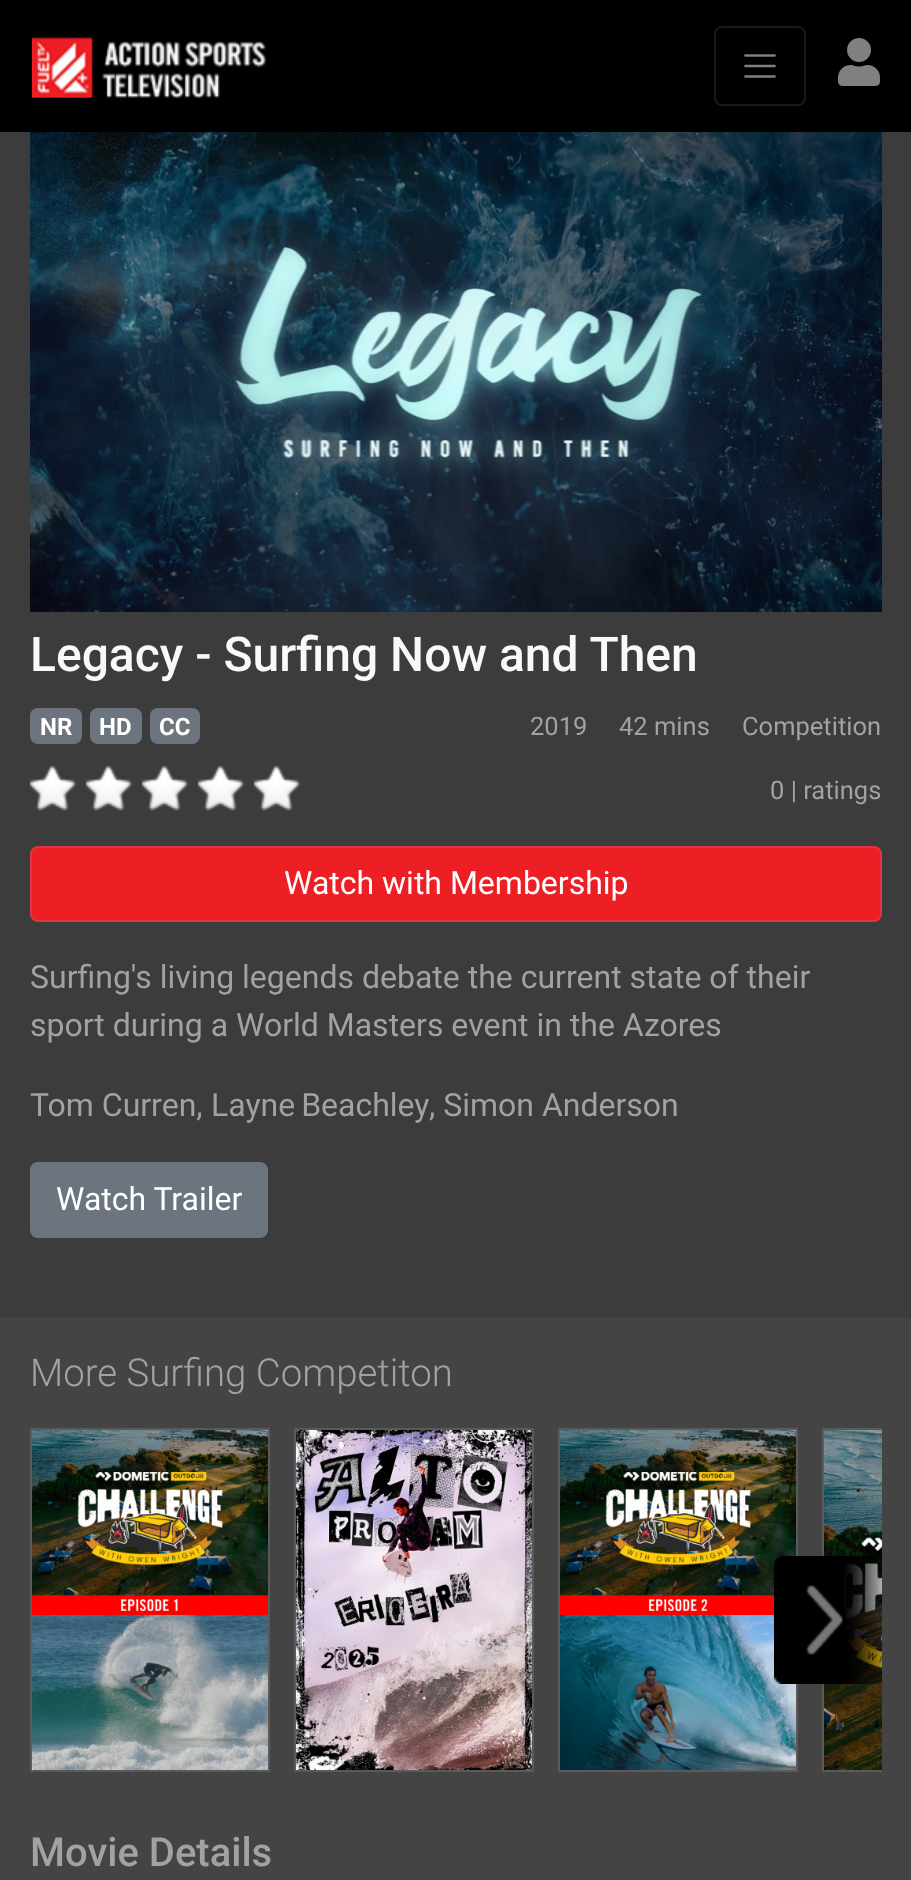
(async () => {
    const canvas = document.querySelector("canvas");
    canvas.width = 911;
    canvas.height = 1880;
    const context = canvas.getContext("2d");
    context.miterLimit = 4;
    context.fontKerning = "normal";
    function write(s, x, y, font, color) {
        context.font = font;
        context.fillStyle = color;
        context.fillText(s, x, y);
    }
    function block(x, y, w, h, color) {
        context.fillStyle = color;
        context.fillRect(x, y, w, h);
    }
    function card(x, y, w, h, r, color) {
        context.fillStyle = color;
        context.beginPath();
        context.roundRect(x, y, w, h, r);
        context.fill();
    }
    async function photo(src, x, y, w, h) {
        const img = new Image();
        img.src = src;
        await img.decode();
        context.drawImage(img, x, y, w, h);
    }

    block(0, 0, 911, 1880, "rgb(60, 60, 60)");
    block(0, 0, 911, 132, "rgb(0, 0, 0)");
    await photo("media/1.png", 32, 37, 235, 61);
    context.beginPath();
    context.roundRect(715, 27, 90, 78, 7);
    context.strokeStyle = "rgb(26, 26, 26)";
    context.lineWidth = 2;
    context.stroke();
    context.beginPath();
    context.moveTo(745.5, 55.5);
    context.lineTo(774.5, 55.5);
    context.moveTo(745.5, 66);
    context.lineTo(774.5, 66);
    context.moveTo(745.5, 76.5);
    context.lineTo(774.5, 76.5);
    context.strokeStyle = "rgb(128, 128, 128)";
    context.lineWidth = 2.7;
    context.lineCap = "round";
    context.stroke();
    await photo("media/2.png", 838, 38, 42, 48);
    await photo("media/3.png", 30, 132, 852, 480);
    write("Legacy - Surfing Now and Then", 30, 671, "500 48px Roboto", "rgb(248, 249, 250)");
    card(30, 708, 52, 36, 8, "rgb(108, 117, 125)");
    write("NR", 40, 735, "bold 24px Roboto", "rgb(255, 255, 255)");
    card(90, 708, 52, 36, 8, "rgb(108, 117, 125)");
    write("HD", 99, 735, "bold 24px Roboto", "rgb(255, 255, 255)");
    card(150, 708, 50, 36, 8, "rgb(108, 117, 125)");
    write("CC", 159, 735, "bold 24px Roboto", "rgb(255, 255, 255)");
    write("2019", 530, 735, "25.5px Roboto", "rgb(162, 162, 162)");
    write("42 mins", 619, 735, "25.5px Roboto", "rgb(162, 162, 162)");
    write("Competition", 742, 735, "25.5px Roboto", "rgb(162, 162, 162)");
    await photo("media/4.png", 30, 766, 47, 45);
    await photo("media/4.png", 86, 766, 47, 45);
    await photo("media/4.png", 142, 766, 47, 45);
    await photo("media/4.png", 198, 766, 47, 45);
    await photo("media/4.png", 254, 766, 47, 45);
    write("0 | ratings", 770, 799, "25.5px Roboto", "rgb(162, 162, 162)");
    context.fillStyle = "rgb(237, 31, 36)";
    context.beginPath();
    context.roundRect(31, 847, 850, 74, 7);
    context.fill();
    context.strokeStyle = "rgb(220, 53, 69)";
    context.lineWidth = 2;
    context.stroke();
    write("Watch with Membership", 284, 894, "32px Roboto", "rgb(255, 255, 255)");
    write("Surfing's living legends debate the current state of their", 30, 988, "32px Roboto", "rgb(162, 162, 162)");
    write("sport during a World Masters event in the Azores", 30, 1036, "32px Roboto", "rgb(162, 162, 162)");
    write("Tom Curren,", 30, 1116, "32px Roboto", "rgb(162, 162, 162)");
    context.wordSpacing = "-2px";
    write("Layne Beachley", 211, 1116, "32px Roboto", "rgb(162, 162, 162)");
    context.wordSpacing = "0px";
    write(", Simon Anderson", 429, 1116, "32px Roboto", "rgb(162, 162, 162)");
    context.fillStyle = "rgb(108, 117, 125)";
    context.beginPath();
    context.roundRect(31, 1163, 236, 74, 7);
    context.fill();
    context.strokeStyle = "rgb(108, 117, 125)";
    context.stroke();
    write("Watch Trailer", 56, 1210, "32px Roboto", "rgb(255, 255, 255)");
    block(0, 1318, 911, 562, "rgb(68, 68, 68)");
    write("More Surfing Competiton", 30, 1386, "300 38.4px Roboto", "rgb(162, 162, 162)");
    context.strokeStyle = "rgb(90, 90, 90)";
    context.strokeRect(31, 1429, 238, 342);
    await photo("media/5.png", 32, 1430, 236, 340);
    context.strokeRect(295, 1429, 238, 342);
    await photo("media/6.png", 296, 1430, 236, 340);
    context.strokeRect(559, 1429, 238, 342);
    await photo("media/7.png", 560, 1430, 236, 340);
    context.save();
    context.beginPath();
    context.rect(30, 1428, 852, 344);
    context.clip();
    context.strokeRect(823, 1429, 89, 342);
    context.restore();
    await photo("media/8.png", 824, 1430, 58, 340);
    await photo("media/9.png", 774, 1556, 108, 128);
    write("Movie Details", 30, 1866, "500 40px Roboto", "rgb(162, 162, 162)");
})();
